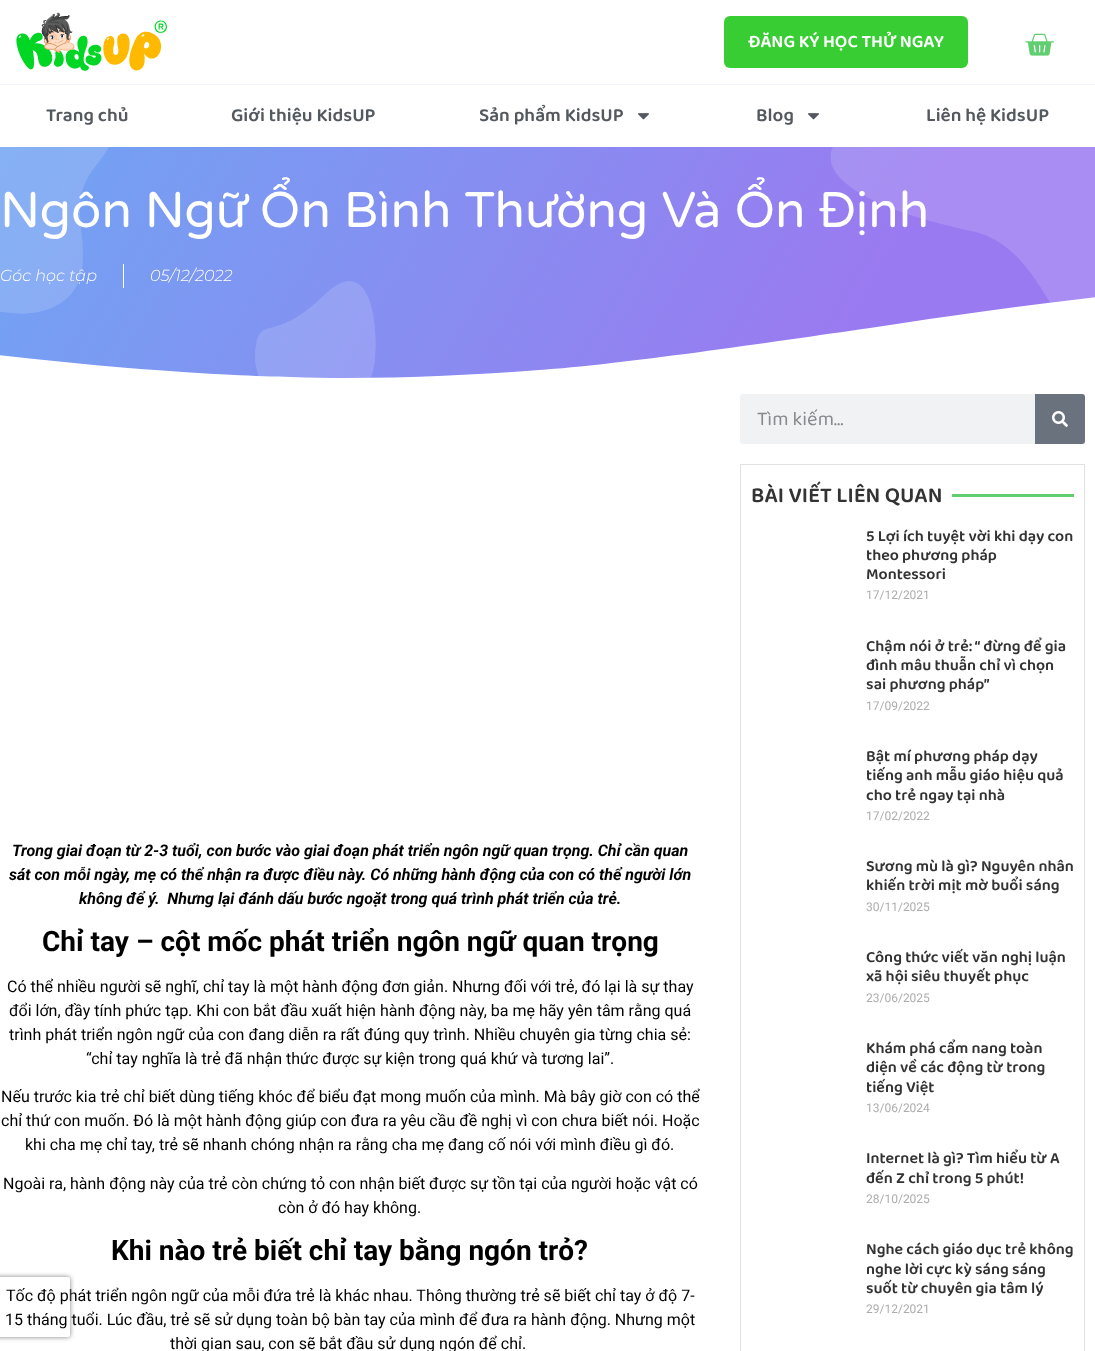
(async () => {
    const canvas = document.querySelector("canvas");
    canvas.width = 1095;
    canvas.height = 1351;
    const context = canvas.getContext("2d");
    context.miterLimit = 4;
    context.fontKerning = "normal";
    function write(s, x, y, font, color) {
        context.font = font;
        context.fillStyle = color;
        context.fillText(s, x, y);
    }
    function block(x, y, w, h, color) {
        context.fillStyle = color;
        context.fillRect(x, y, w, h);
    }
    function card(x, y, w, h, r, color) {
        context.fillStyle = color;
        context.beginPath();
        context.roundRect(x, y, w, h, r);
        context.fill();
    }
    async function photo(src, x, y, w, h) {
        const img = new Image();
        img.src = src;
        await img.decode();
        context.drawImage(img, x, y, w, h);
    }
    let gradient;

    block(0, 0, 1095, 1351, "rgb(255, 255, 255)");
    await photo("media/1.png", 16, 12, 151, 59);
    card(724, 16, 244, 52, 6, "rgb(57, 205, 52)");
    write("ĐĂNG KÝ HỌC THỬ NGAY", 748, 47, "600 18px 'Baloo 2'", "rgb(255, 255, 255)");
    await photo("media/2.png", 1025, 33, 29, 23);
    block(0, 84, 1095, 1, "rgb(240, 242, 251)");
    write("Trang chủ", 46, 121, "600 19px 'Baloo 2'", "rgb(84, 89, 95)");
    write("Giới thiệu KidsUP", 231, 121, "600 19px 'Baloo 2'", "rgb(84, 89, 95)");
    write("Sản phẩm KidsUP", 479, 121, "600 19px 'Baloo 2'", "rgb(84, 89, 95)");
    await photo("media/3.png", 638, 113, 11, 7);
    write("Blog", 756, 121, "600 19px 'Baloo 2'", "rgb(84, 89, 95)");
    await photo("media/3.png", 808, 113, 11, 7);
    write("Liên hệ KidsUP", 926, 121, "600 19px 'Baloo 2'", "rgb(84, 89, 95)");
    gradient = context.createLinearGradient(72, -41, 1023, 509);
    gradient.addColorStop(0, "rgb(111, 166, 243)");
    gradient.addColorStop(0.78, "rgb(154, 122, 240)");
    context.fillStyle = gradient;
    context.fillRect(0, 147, 1095, 231);
    await photo("media/4.png", 0, 147, 1095, 231);
    write("Ngôn Ngữ Ổn Bình Thường Và Ổn Định", 0, 227, "50px Varela Round", "rgb(255, 255, 255)");
    write("Góc học tập", 0, 281, "italic 300 16px Montserrat", "rgb(255, 255, 255)");
    block(123, 264, 1, 24, "rgb(255, 255, 255)");
    write("05/12/2022", 150, 281, "italic 300 16px Montserrat", "rgb(255, 255, 255)");
    context.beginPath();
    context.moveTo(291, 377);
    context.bezierCurveTo(366, 380, 461, 376, 539, 370);
    context.bezierCurveTo(617, 365, 772, 342, 870, 328);
    context.bezierCurveTo(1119, 289, 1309, 274, 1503, 268);
    context.bezierCurveTo(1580, 265, 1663, 264, 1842, 271);
    context.bezierCurveTo(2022, 278, 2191, 302, 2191, 302);
    context.lineTo(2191, 385);
    context.lineTo(-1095, 385);
    context.lineTo(-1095, 348);
    context.bezierCurveTo(-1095, 348, -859, 309, -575, 312);
    context.bezierCurveTo(-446, 313, -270, 320, -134, 339);
    context.bezierCurveTo(-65, 348, 37, 360, 128, 368);
    context.bezierCurveTo(217, 375, 257, 376, 291, 377);
    context.closePath();
    context.fill();
    write("Trong giai đoạn từ 2-3 tuổi, con bước vào giai đoạn phát triển ngôn ngữ quan trọng. Chỉ cần quan", 12, 856, "italic bold 16px Roboto", "rgb(0, 0, 0)");
    write("sát con mỗi ngày, mẹ có thể nhận ra được điều này. Có những hành động của con có thể người lớn", 9, 880, "italic bold 16px Roboto", "rgb(0, 0, 0)");
    write("không để ý.  Nhưng lại đánh dấu bước ngoặt trong quá trình phát triển của trẻ.", 79, 904, "italic bold 16px Roboto", "rgb(0, 0, 0)");
    write("Chỉ tay – cột mốc phát triển ngôn ngữ quan trọng", 42, 951, "bold 28px Roboto", "rgb(0, 0, 0)");
    write("Có thể nhiều người sẽ nghĩ, chỉ tay là một hành động đơn giản. Nhưng đối với trẻ, đó lại là sự thay", 7, 992, "16px Roboto", "rgb(0, 0, 0)");
    write("đổi lớn, đầy tính phức tạp. Khi con bắt đầu xuất hiện hành động này, ba mẹ hãy yên tâm rằng quá", 9, 1016, "16px Roboto", "rgb(0, 0, 0)");
    write("trình phát triển ngôn ngữ của con đang diễn ra rất đúng quy trình. Nhiều chuyên gia từng chia sẻ:", 9, 1040, "16px Roboto", "rgb(0, 0, 0)");
    write("“chỉ tay nghĩa là trẻ đã nhận thức được sự kiện trong quá khứ và tương lai”.", 86, 1064, "16px Roboto", "rgb(0, 0, 0)");
    write("Nếu trước kia trẻ chỉ biết dùng tiếng khóc để biểu đạt mong muốn của mình. Mà bây giờ con có thể", 1, 1102, "16px Roboto", "rgb(0, 0, 0)");
    write("chỉ thứ con muốn. Đó là một hành động giúp con đưa ra yêu cầu đề nghị vì con chưa biết nói. Hoặc", 1, 1126, "16px Roboto", "rgb(0, 0, 0)");
    write("khi cha mẹ chỉ tay, trẻ sẽ nhanh chóng nhận ra rằng cha mẹ đang cố nói với mình điều gì đó.", 25, 1150, "16px Roboto", "rgb(0, 0, 0)");
    write("Ngoài ra, hành động này của trẻ còn chứng tỏ con nhận biết được sự tồn tại của người hoặc vật có", 3, 1189, "16px Roboto", "rgb(0, 0, 0)");
    write("còn ở đó hay không.", 278, 1213, "16px Roboto", "rgb(0, 0, 0)");
    write("Khi nào trẻ biết chỉ tay bằng ngón trỏ?", 111, 1260, "bold 28px Roboto", "rgb(0, 0, 0)");
    write("Tốc độ phát triển ngôn ngữ của mỗi đứa trẻ là khác nhau. Thông thường trẻ sẽ biết chỉ tay ở độ 7-", 6, 1301, "16px Roboto", "rgb(0, 0, 0)");
    write("15 tháng tuổi. Lúc đầu, trẻ sẽ sử dụng toàn bộ bàn tay của mình để đưa ra hành động. Nhưng một", 5, 1325, "16px Roboto", "rgb(0, 0, 0)");
    write("thời gian sau, con sẽ bắt đầu sử dụng ngón để chỉ.", 170, 1349, "16px Roboto", "rgb(0, 0, 0)");
    card(740, 394, 345, 50, 3, "rgb(241, 242, 243)");
    write("Tìm kiếm...", 757, 425, "20px 'Baloo 2'", "rgb(134, 138, 142)");
    context.fillStyle = "rgb(105, 114, 125)";
    context.beginPath();
    context.roundRect(1035, 394, 50, 50, [0, 3, 3, 0]);
    context.fill();
    await photo("media/5.png", 1052, 411, 16, 16);
    context.save();
    context.beginPath();
    context.moveTo(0, 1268);
    context.lineTo(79, 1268);
    context.lineTo(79, 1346);
    context.lineTo(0, 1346);
    context.closePath();
    context.moveTo(-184, 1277);
    context.lineTo(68, 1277);
    context.bezierCurveTo(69, 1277, 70, 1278, 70, 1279);
    context.lineTo(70, 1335);
    context.bezierCurveTo(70, 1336, 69, 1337, 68, 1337);
    context.lineTo(-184, 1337);
    context.bezierCurveTo(-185, 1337, -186, 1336, -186, 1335);
    context.lineTo(-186, 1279);
    context.bezierCurveTo(-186, 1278, -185, 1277, -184, 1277);
    context.closePath();
    context.clip("evenodd");
    context.fillStyle = "rgb(128, 128, 128)";
    context.filter = "blur(2.5px)";
    context.beginPath();
    context.roundRect(-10, 1277, 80, 60, 2);
    context.fill();
    context.filter = "none";
    context.restore();
    context.strokeStyle = "rgb(225, 225, 225)";
    context.strokeRect(740.5, 464.5, 344, 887);
    write("BÀI VIẾT LIÊN QUAN", 751, 502, "600 22px 'Baloo 2'", "rgb(51, 51, 51)");
    block(952, 494, 122, 3, "rgb(97, 206, 112)");
    write("5 Lợi ích tuyệt vời khi dạy con", 866, 541, "600 16px 'Baloo 2'", "rgb(51, 51, 51)");
    write("theo phương pháp", 866, 560, "600 16px 'Baloo 2'", "rgb(51, 51, 51)");
    write("Montessori", 866, 579, "600 16px 'Baloo 2'", "rgb(51, 51, 51)");
    write("17/12/2021", 866, 599, "12px Roboto", "rgb(173, 173, 173)");
    write("Chậm nói ở trẻ: “ đừng để gia", 866, 651, "600 16px 'Baloo 2'", "rgb(51, 51, 51)");
    write("đình mâu thuẫn chỉ vì chọn", 866, 670, "600 16px 'Baloo 2'", "rgb(51, 51, 51)");
    write("sai phương pháp”", 866, 689, "600 16px 'Baloo 2'", "rgb(51, 51, 51)");
    write("17/09/2022", 866, 710, "12px Roboto", "rgb(173, 173, 173)");
    write("Bật mí phương pháp dạy", 866, 761, "600 16px 'Baloo 2'", "rgb(51, 51, 51)");
    write("tiếng anh mẫu giáo hiệu quả", 866, 780, "600 16px 'Baloo 2'", "rgb(51, 51, 51)");
    write("cho trẻ ngay tại nhà", 866, 800, "600 16px 'Baloo 2'", "rgb(51, 51, 51)");
    write("17/02/2022", 866, 820, "12px Roboto", "rgb(173, 173, 173)");
    write("Sương mù là gì? Nguyên nhân", 866, 871, "600 16px 'Baloo 2'", "rgb(51, 51, 51)");
    write("khiến trời mịt mờ buổi sáng", 866, 890, "600 16px 'Baloo 2'", "rgb(51, 51, 51)");
    write("30/11/2025", 866, 911, "12px Roboto", "rgb(173, 173, 173)");
    write("Công thức viết văn nghị luận", 866, 962, "600 16px 'Baloo 2'", "rgb(51, 51, 51)");
    write("xã hội siêu thuyết phục", 866, 981, "600 16px 'Baloo 2'", "rgb(51, 51, 51)");
    write("23/06/2025", 866, 1002, "12px Roboto", "rgb(173, 173, 173)");
    write("Khám phá cẩm nang toàn", 866, 1053, "600 16px 'Baloo 2'", "rgb(51, 51, 51)");
    write("diện về các động từ trong", 866, 1072, "600 16px 'Baloo 2'", "rgb(51, 51, 51)");
    write("tiếng Việt", 866, 1092, "600 16px 'Baloo 2'", "rgb(51, 51, 51)");
    write("13/06/2024", 866, 1112, "12px Roboto", "rgb(173, 173, 173)");
    write("Internet là gì? Tìm hiểu từ A", 866, 1163, "600 16px 'Baloo 2'", "rgb(51, 51, 51)");
    write("đến Z chỉ trong 5 phút!", 866, 1183, "600 16px 'Baloo 2'", "rgb(51, 51, 51)");
    write("28/10/2025", 866, 1203, "12px Roboto", "rgb(173, 173, 173)");
    write("Nghe cách giáo dục trẻ không", 866, 1254, "600 16px 'Baloo 2'", "rgb(51, 51, 51)");
    write("nghe lời cực kỳ sáng sáng", 866, 1274, "600 16px 'Baloo 2'", "rgb(51, 51, 51)");
    write("suốt từ chuyên gia tâm lý", 866, 1293, "600 16px 'Baloo 2'", "rgb(51, 51, 51)");
    write("29/12/2021", 866, 1313, "12px Roboto", "rgb(173, 173, 173)");
})();
